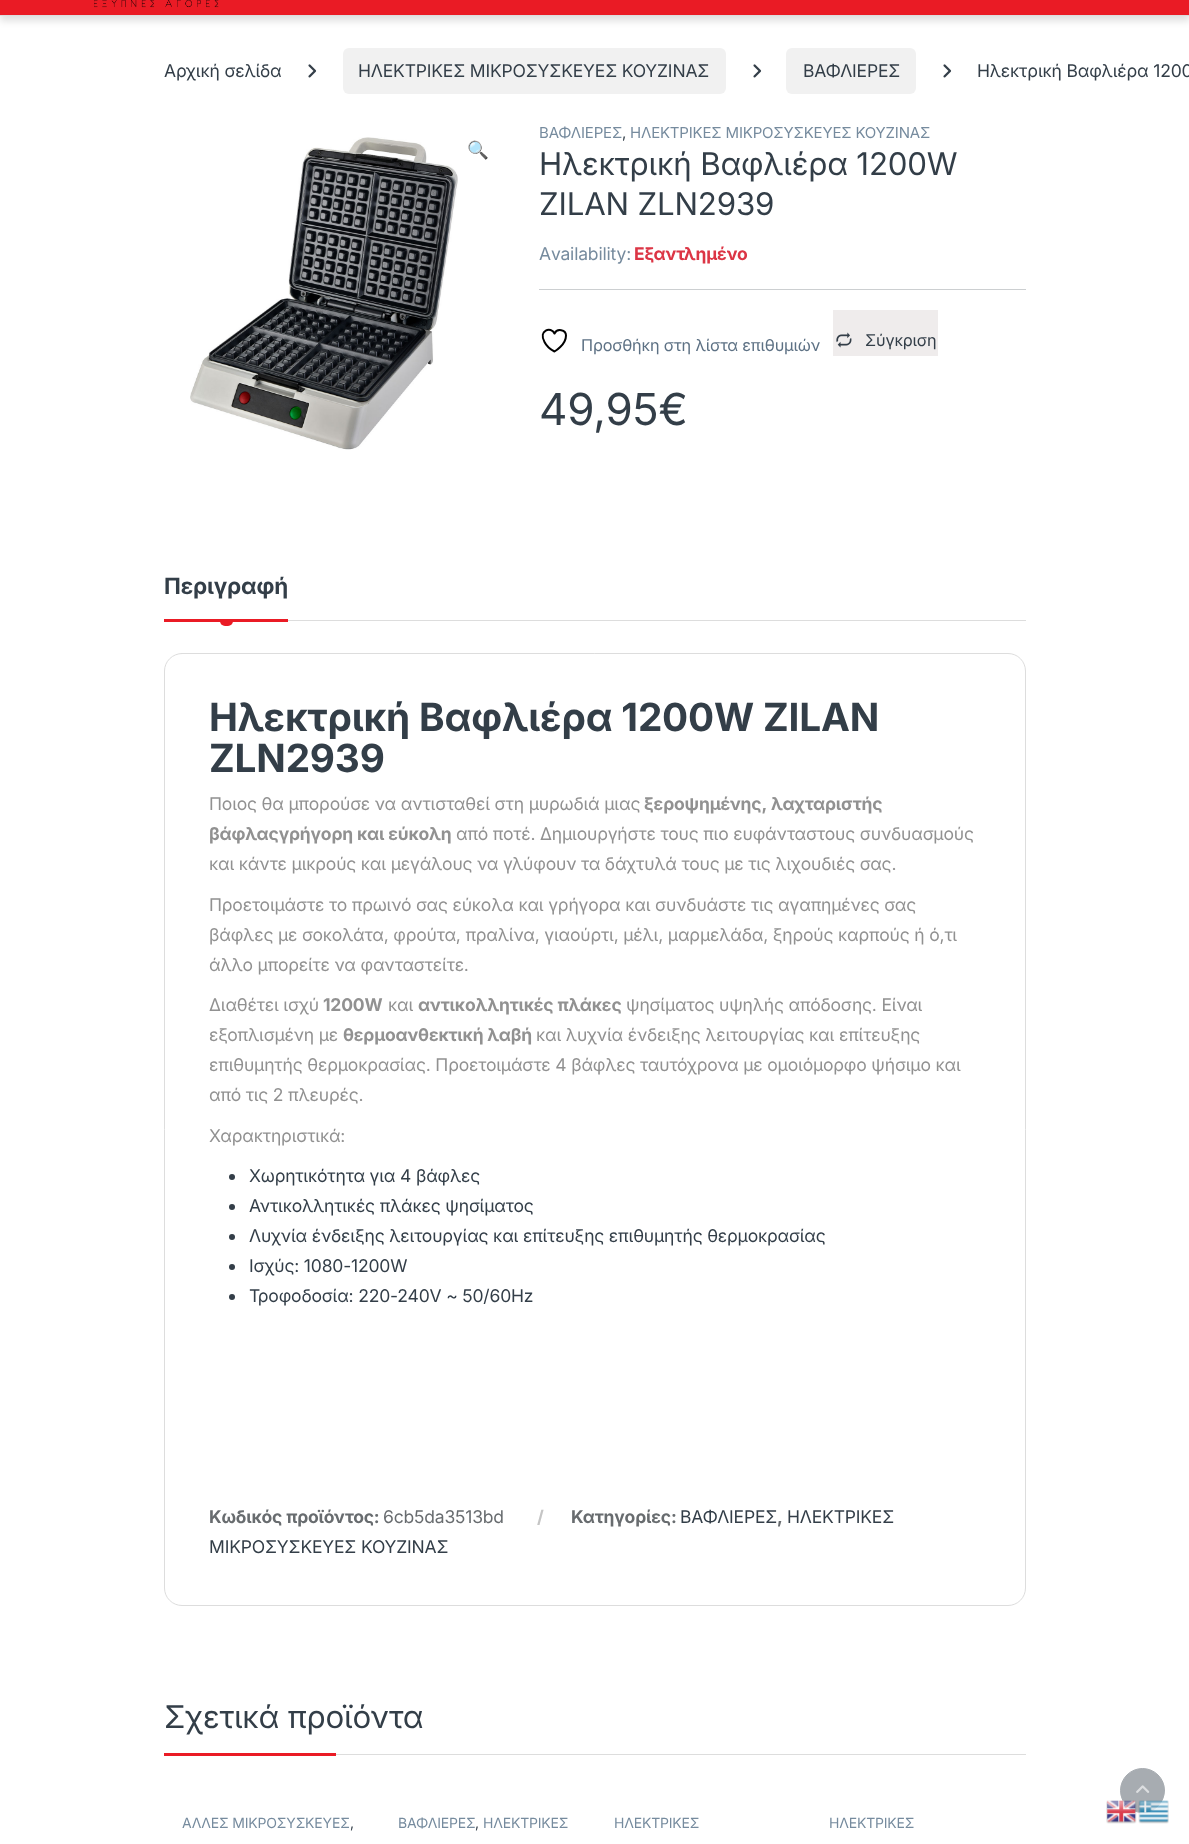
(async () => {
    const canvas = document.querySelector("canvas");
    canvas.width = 1189;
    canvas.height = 1844;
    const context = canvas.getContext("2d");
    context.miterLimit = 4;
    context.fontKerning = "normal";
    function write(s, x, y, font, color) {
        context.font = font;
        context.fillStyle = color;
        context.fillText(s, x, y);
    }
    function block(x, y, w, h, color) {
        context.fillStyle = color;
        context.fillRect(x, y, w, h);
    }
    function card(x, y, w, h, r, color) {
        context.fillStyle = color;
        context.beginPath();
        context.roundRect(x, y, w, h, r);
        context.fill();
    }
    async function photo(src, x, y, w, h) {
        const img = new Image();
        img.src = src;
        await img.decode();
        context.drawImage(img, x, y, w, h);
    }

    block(0, 0, 1189, 1844, "rgb(255, 255, 255)");
    context.fillStyle = "rgba(0, 0, 0, 0.12)";
    context.filter = "blur(3.5px)";
    context.beginPath();
    context.rect(0, -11, 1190, 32);
    context.fill();
    context.filter = "none";
    block(0, 15, 1189, 1, "rgb(221, 221, 221)");
    block(0, 0, 1189, 15, "rgb(234, 27, 37)");
    await photo("media/1.png", 94, 0, 125, 8);
    context.letterSpacing = "-0.18px";
    write("Αρχική σελίδα", 164, 77, "17.5px Inter", "rgb(51, 62, 72)");
    await photo("media/2.png", 308, 64, 9, 14);
    card(343, 48, 383, 46, 6, "rgb(241, 241, 241)");
    write("ΗΛΕΚΤΡΙΚΕΣ ΜΙΚΡΟΣΥΣΚΕΥΕΣ ΚΟΥΖΙΝΑΣ", 358, 77, "17.5px Inter", "rgb(51, 62, 72)");
    await photo("media/2.png", 753, 64, 9, 14);
    card(786, 48, 130, 46, 6, "rgb(241, 241, 241)");
    write("ΒΑΦΛΙΕΡΕΣ", 803, 77, "17.5px Inter", "rgb(51, 62, 72)");
    await photo("media/2.png", 943, 64, 9, 14);
    write("Ηλεκτρική Βαφλιέρα 1200", 977, 77, "17.5px Inter", "rgb(51, 62, 72)");
    await photo("media/3.png", 190, 137, 268, 313);
    write("🔍", 467, 156, "17.5px Noto Color Emoji", "rgb(51, 62, 72)");
    write("ΒΑΦΛΙΕΡΕΣ", 539, 138, "15px Inter", "rgb(118, 139, 158)");
    write(",", 622, 138, "15px Inter", "rgb(51, 62, 72)");
    write("ΗΛΕΚΤΡΙΚΕΣ ΜΙΚΡΟΣΥΣΚΕΥΕΣ ΚΟΥΖΙΝΑΣ", 630, 138, "15px Inter", "rgb(118, 139, 158)");
    write("Ηλεκτρική Βαφλιέρα 1200W", 539, 175, "31.25px Inter", "rgb(51, 62, 72)");
    write("ZILAN ZLN2939", 539, 215, "31.25px Inter", "rgb(51, 62, 72)");
    write("Availability:", 539, 260, "17.5px Inter", "rgb(118, 139, 158)");
    write("Εξαντλημένο", 634, 260, "bold 17.5px Inter", "rgb(220, 53, 69)");
    block(539, 289, 487, 1, "rgb(204, 207, 209)");
    context.beginPath();
    context.moveTo(566, 335.5);
    context.bezierCurveTo(566, 329.5, 557, 328, 554.5, 333.5);
    context.bezierCurveTo(551, 326, 538, 330.5, 544.5, 342);
    context.bezierCurveTo(546.5, 346, 550.5, 349.5, 554.5, 351.5);
    context.bezierCurveTo(554.5, 351.5, 566, 345, 566, 335.5);
    context.closePath();
    context.strokeStyle = "rgb(0, 0, 0)";
    context.lineWidth = 2;
    context.lineCap = "round";
    context.lineJoin = "round";
    context.stroke();
    write("Προσθήκη στη λίστα επιθυμιών", 581, 351, "16.25px Inter", "rgb(93, 113, 132)");
    block(833, 310, 105, 46, "rgb(239, 236, 236)");
    await photo("media/4.png", 836, 332, 16, 16);
    write("Σύγκριση", 865, 346, "16.25px Inter", "rgb(51, 62, 72)");
    write("49,95€", 539, 425, "44px Inter", "rgb(51, 62, 72)");
    write("Περιγραφή", 164, 594, "bold 22.5px Inter", "rgb(51, 62, 72)");
    context.fillStyle = "rgb(234, 27, 37)";
    context.beginPath();
    context.roundRect(220, 621, 13, 5, [0, 0, 5, 5]);
    context.fill();
    block(164, 619, 124, 3, "rgb(234, 27, 37)");
    block(288, 620, 738, 1, "rgb(221, 221, 221)");
    context.beginPath();
    context.roundRect(164.5, 653.5, 861, 952, 17.5);
    context.strokeStyle = "rgb(221, 221, 221)";
    context.lineWidth = 1;
    context.lineJoin = "miter";
    context.stroke();
    write("Ηλεκτρική Βαφλιέρα 1200W ZILAN", 209, 731, "bold 38.75px Inter", "rgb(51, 62, 72)");
    write("ZLN2939", 209, 772, "bold 38.75px Inter", "rgb(51, 62, 72)");
    write("Ποιος θα μπορούσε να αντισταθεί στη μυρωδιά μιας", 209, 810, "17.5px Inter", "rgb(145, 145, 145)");
    write("ξεροψημένης, λαχταριστής", 644, 810, "bold 17.5px Inter", "rgb(145, 145, 145)");
    write("βάφλαςγρήγορη και εύκολη", 209, 840, "bold 17.5px Inter", "rgb(145, 145, 145)");
    write("από ποτέ. Δημιουργήστε τους πιο ευφάνταστους συνδυασμούς", 456, 840, "17.5px Inter", "rgb(145, 145, 145)");
    write("και κάντε μικρούς και μεγάλους να γλύφουν τα δάχτυλά τους με τις λιχουδιές σας.", 209, 870, "17.5px Inter", "rgb(145, 145, 145)");
    write("Προετοιμάστε το πρωινό σας εύκολα και γρήγορα και συνδυάστε τις αγαπημένες σας", 209, 911, "17.5px Inter", "rgb(145, 145, 145)");
    write("βάφλες με σοκολάτα, φρούτα, πραλίνα, γιαούρτι, μέλι, μαρμελάδα, ξηρούς καρπούς ή ό,τι", 209, 941, "17.5px Inter", "rgb(145, 145, 145)");
    write("άλλο μπορείτε να φανταστείτε.", 209, 971, "17.5px Inter", "rgb(145, 145, 145)");
    write("Διαθέτει ισχύ", 209, 1011, "17.5px Inter", "rgb(145, 145, 145)");
    write("1200W", 323, 1011, "bold 17.5px Inter", "rgb(145, 145, 145)");
    write("και", 388, 1011, "17.5px Inter", "rgb(145, 145, 145)");
    write("αντικολλητικές πλάκες", 418, 1011, "bold 17.5px Inter", "rgb(145, 145, 145)");
    write("ψησίματος υψηλής απόδοσης. Είναι", 626, 1011, "17.5px Inter", "rgb(145, 145, 145)");
    write("εξοπλισμένη με", 209, 1041, "17.5px Inter", "rgb(145, 145, 145)");
    write("θερμοανθεκτική λαβή", 343, 1041, "bold 17.5px Inter", "rgb(145, 145, 145)");
    write("και λυχνία ένδειξης λειτουργίας και επίτευξης", 536, 1041, "17.5px Inter", "rgb(145, 145, 145)");
    write("επιθυμητής θερμοκρασίας. Προετοιμάστε 4 βάφλες ταυτόχρονα με ομοιόμορφο ψήσιμο και", 209, 1071, "17.5px Inter", "rgb(145, 145, 145)");
    write("από τις 2 πλευρές.", 209, 1101, "17.5px Inter", "rgb(145, 145, 145)");
    write("Χαρακτηριστικά:", 209, 1142, "17.5px Inter", "rgb(145, 145, 145)");
    context.fillStyle = "rgb(51, 62, 72)";
    context.beginPath();
    context.arc(232, 1177, 3, 0, Math.PI * 2);
    context.fill();
    write("Χωρητικότητα για 4 βάφλες", 249, 1182, "17.5px Inter", "rgb(51, 62, 72)");
    context.beginPath();
    context.arc(232, 1207, 3, 0, Math.PI * 2);
    context.fill();
    write("Αντικολλητικές πλάκες ψησίματος", 249, 1212, "17.5px Inter", "rgb(51, 62, 72)");
    context.beginPath();
    context.arc(232, 1237, 3, 0, Math.PI * 2);
    context.fill();
    write("Λυχνία ένδειξης λειτουργίας και επίτευξης επιθυμητής θερμοκρασίας", 249, 1242, "17.5px Inter", "rgb(51, 62, 72)");
    context.beginPath();
    context.arc(232, 1267, 3, 0, Math.PI * 2);
    context.fill();
    write("Ισχύς: 1080-1200W", 249, 1272, "17.5px Inter", "rgb(51, 62, 72)");
    context.beginPath();
    context.arc(232, 1297, 3, 0, Math.PI * 2);
    context.fill();
    write("Τροφοδοσία: 220-240V ~ 50/60Hz", 249, 1302, "17.5px Inter", "rgb(51, 62, 72)");
    write("Κωδικός προϊόντος:", 209, 1523, "bold 17.5px Inter", "rgb(104, 108, 111)");
    write("6cb5da3513bd", 383, 1523, "17.5px Inter", "rgb(104, 108, 111)");
    write("/", 537, 1523, "bold 17.5px Inter", "rgb(197, 197, 197)");
    write("Κατηγορίες:", 571, 1523, "bold 17.5px Inter", "rgb(104, 108, 111)");
    write("ΒΑΦΛΙΕΡΕΣ", 680, 1523, "17.5px Inter", "rgb(51, 62, 72)");
    write("ΗΛΕΚΤΡΙΚΕΣ", 787, 1523, "17.5px Inter", "rgb(51, 62, 72)");
    write(",", 777, 1523, "bold 17.5px Inter", "rgb(104, 108, 111)");
    write("ΜΙΚΡΟΣΥΣΚΕΥΕΣ ΚΟΥΖΙΝΑΣ", 209, 1553, "17.5px Inter", "rgb(51, 62, 72)");
    block(336, 1754, 690, 1, "rgb(221, 221, 221)");
    write("Σχετικά προϊόντα", 164, 1728, "31.25px Inter", "rgb(51, 62, 72)");
    block(164, 1753, 172, 3, "rgb(234, 27, 37)");
    write("ΑΛΛΕΣ ΜΙΚΡΟΣΥΣΚΕΥΕΣ", 182, 1828, "14px Inter", "rgb(118, 139, 158)");
    write(",", 350, 1828, "14px Inter", "rgb(51, 62, 72)");
    write("ΒΑΦΛΙΕΡΕΣ", 398, 1828, "14px Inter", "rgb(118, 139, 158)");
    write("ΗΛΕΚΤΡΙΚΕΣ", 483, 1828, "14px Inter", "rgb(118, 139, 158)");
    write(",", 475, 1828, "14px Inter", "rgb(51, 62, 72)");
    write("ΗΛΕΚΤΡΙΚΕΣ", 614, 1828, "14px Inter", "rgb(118, 139, 158)");
    write("ΗΛΕΚΤΡΙΚΕΣ", 829, 1828, "14px Inter", "rgb(118, 139, 158)");
    context.fillStyle = "rgb(167, 172, 177)";
    context.beginPath();
    context.arc(1142.5, 1790.5, 22, 0, Math.PI * 2);
    context.fill();
    context.strokeStyle = "rgb(167, 172, 177)";
    context.stroke();
    await photo("media/5.png", 1136, 1785, 14, 8);
    await photo("media/6.png", 1106, 1800, 31, 24);
    await photo("media/7.png", 1138, 1800, 31, 24);
})();
